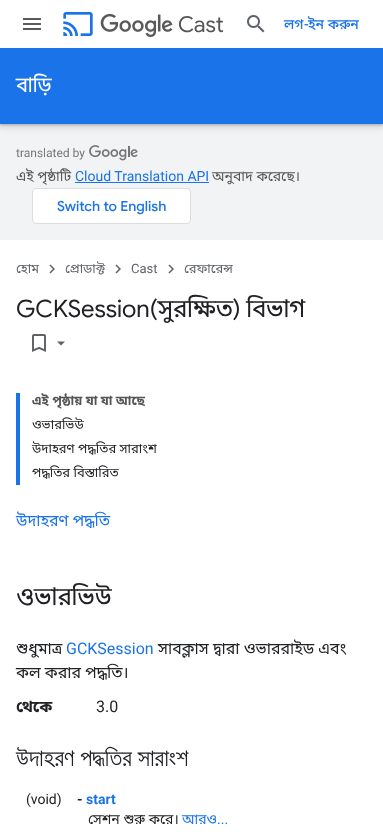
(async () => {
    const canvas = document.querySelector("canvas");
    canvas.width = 383;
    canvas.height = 834;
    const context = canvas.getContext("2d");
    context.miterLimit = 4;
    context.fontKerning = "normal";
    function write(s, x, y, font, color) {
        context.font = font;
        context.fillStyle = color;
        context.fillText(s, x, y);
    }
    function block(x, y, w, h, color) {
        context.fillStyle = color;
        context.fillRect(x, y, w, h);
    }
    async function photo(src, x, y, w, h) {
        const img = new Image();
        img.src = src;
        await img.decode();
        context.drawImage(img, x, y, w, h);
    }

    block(0, 0, 383, 834, "rgb(255, 255, 255)");
    block(0, 124, 383, 116, "rgb(241, 243, 244)");
    context.fillStyle = "rgba(60, 64, 67, 0.15)";
    context.filter = "blur(3px)";
    context.beginPath();
    context.rect(-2, 48, 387, 80);
    context.fill();
    context.filter = "none";
    context.fillStyle = "rgba(60, 64, 67, 0.3)";
    context.filter = "blur(1px)";
    context.beginPath();
    context.rect(0, 49, 383, 76);
    context.fill();
    context.filter = "none";
    block(0, 44, 383, 4, "rgb(255, 255, 255)");
    await photo("media/1.png", 23, 18, 18, 12);
    await photo("media/2.png", 63, 12, 30, 24);
    await photo("media/3.png", 100, 13, 73, 24);
    write("Cast", 178, 32, "22px Google Sans", "rgb(84, 85, 85)");
    await photo("media/4.png", 247, 15, 18, 18);
    write("লগ", 284, 29, "500 14px Noto Sans Bengali", "rgb(26, 115, 232)");
    write("-", 304, 29, "500 14px Roboto", "rgb(26, 115, 232)");
    write("ইন করুন", 308, 29, "500 14px Noto Sans Bengali", "rgb(26, 115, 232)");
    block(0, 48, 383, 76, "rgb(26, 115, 232)");
    write("বাড়ি", 16, 92, "20px Google Sans", "rgb(255, 255, 255)");
    await photo("media/5.png", 16, 145, 122, 16);
    write("এই পৃষ্ঠাটি", 16, 181, "14px Noto Sans Bengali", "rgb(84, 85, 85)");
    write("Cloud Translation API", 75, 181, "14px Roboto", "rgb(26, 115, 232)");
    block(75, 182, 134, 1, "rgb(26, 115, 232)");
    write("অনুবাদ করেছে।", 212, 181, "14px Noto Sans Bengali", "rgb(84, 85, 85)");
    context.fillStyle = "rgb(255, 255, 255)";
    context.beginPath();
    context.roundRect(32.5, 188.5, 158, 35, 3.5);
    context.fill();
    context.strokeStyle = "rgb(218, 220, 224)";
    context.stroke();
    write("Switch to English", 57, 211, "500 14px Google Sans", "rgb(26, 115, 232)");
    write("হোম", 16, 273, "13px Noto Sans Bengali", "rgb(95, 99, 104)");
    await photo("media/6.png", 49, 264, 6, 10);
    write("প্রোডাক্ট", 65, 273, "13px Noto Sans Bengali", "rgb(95, 99, 104)");
    await photo("media/6.png", 115, 264, 6, 10);
    write("Cast", 131, 273, "13px Roboto", "rgb(95, 99, 104)");
    await photo("media/6.png", 168, 264, 6, 10);
    write("রেফারেন্স", 184, 273, "13px Noto Sans Bengali", "rgb(95, 99, 104)");
    write("GCKSession(সুরক্ষিত) বিভাগ", 16, 317, "24px Google Sans", "rgb(32, 33, 36)");
    await photo("media/7.png", 32, 334, 14, 18);
    context.fillStyle = "rgb(95, 99, 104)";
    context.beginPath();
    context.moveTo(57, 341.5);
    context.lineTo(65, 341.5);
    context.lineTo(61, 345.5);
    context.closePath();
    context.fill();
    block(16, 393, 4, 92, "rgb(26, 115, 232)");
    write("এই পৃষ্ঠায় যা যা আছে", 32, 405, "bold 13px Noto Sans Bengali", "rgb(84, 85, 85)");
    write("ওভারভিউ", 32, 429, "13px Noto Sans Bengali", "rgb(32, 33, 36)");
    write("উদাহরণ পদ্ধতির সারাংশ", 32, 453, "13px Noto Sans Bengali", "rgb(32, 33, 36)");
    write("পদ্ধতির বিস্তারিত", 32, 477, "13px Noto Sans Bengali", "rgb(32, 33, 36)");
    write("উদাহরণ পদ্ধতি", 16, 526, "16px Noto Sans Bengali", "rgb(26, 115, 232)");
    write("ওভারভিউ", 16, 605, "24px Google Sans", "rgb(32, 33, 36)");
    write("শুধুমাত্র", 16, 654, "16px Noto Sans Bengali", "rgb(32, 33, 36)");
    write("GCKSession", 66, 654, "16px Roboto", "rgb(26, 115, 232)");
    write("সাবক্লাস দ্বারা ওভাররাইড এবং", 158, 654, "16px Noto Sans Bengali", "rgb(32, 33, 36)");
    write("কল করার পদ্ধতি।", 16, 678, "16px Noto Sans Bengali", "rgb(32, 33, 36)");
    write("থেকে", 16, 712, "bold 16px Noto Sans Bengali", "rgb(32, 33, 36)");
    write("3.0", 96, 712, "16px Roboto", "rgb(32, 33, 36)");
    write("উদাহরণ পদ্ধতির সারাংশ", 16, 766, "24px FreeSans", "rgb(32, 33, 36)");
    write("(void)", 26, 804, "14px Roboto", "rgb(32, 33, 36)");
    write("-", 77, 804, "bold 14px Roboto", "rgb(32, 33, 36)");
    write("start", 86, 804, "bold 14px Roboto", "rgb(26, 115, 232)");
    write("সেশন শুরু করে।", 88, 824, "14px Noto Sans Bengali", "rgb(32, 33, 36)");
    write("আরও", 182, 824, "14px Noto Sans Bengali", "rgb(26, 115, 232)");
    write("...", 217, 824, "14px Roboto", "rgb(26, 115, 232)");
})();
